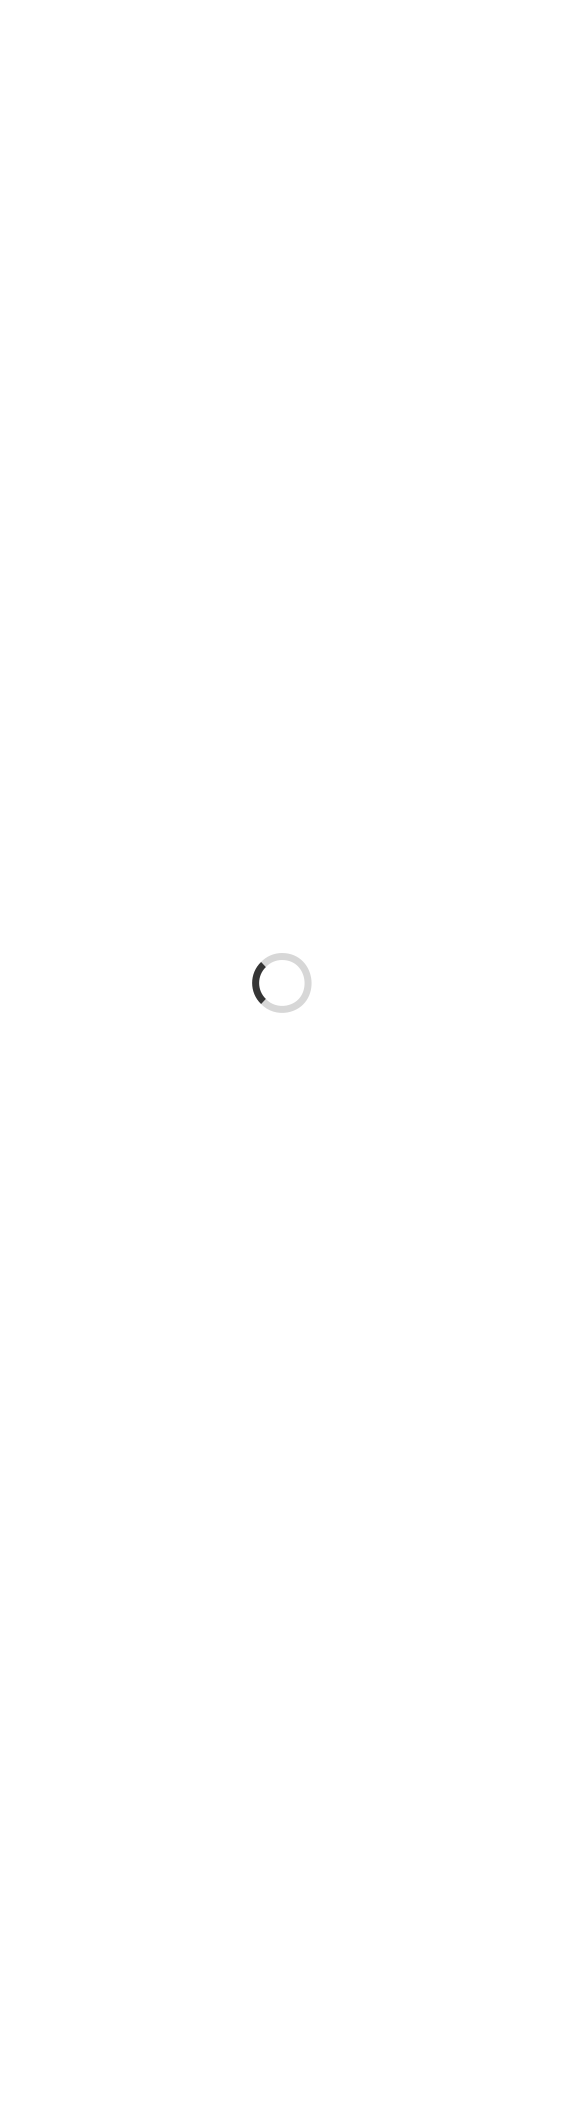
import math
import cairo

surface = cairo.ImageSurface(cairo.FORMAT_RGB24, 564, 2105)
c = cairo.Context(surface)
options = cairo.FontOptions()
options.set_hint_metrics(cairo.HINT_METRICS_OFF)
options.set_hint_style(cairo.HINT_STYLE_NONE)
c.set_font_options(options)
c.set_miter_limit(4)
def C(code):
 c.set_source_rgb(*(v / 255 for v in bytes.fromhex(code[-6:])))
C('ffffff')
c.paint()
c.new_path()
c.move_to(263.5,964.5)
c.curve_to(268,959.5,275,956.5,282,956.5)
c.curve_to(313.5,956.5,318,1003,287,1009)
c.curve_to(278.5,1010.5,269.5,1008,263.5,1001.5)
C('d7d7d7')
c.set_line_width(7)
c.stroke()
c.new_path()
c.move_to(263.5,1001.5)
c.curve_to(253,991.5,253,974.5,263.5,964.5)
C('353535')
c.stroke()
surface.write_to_png('o.png')
